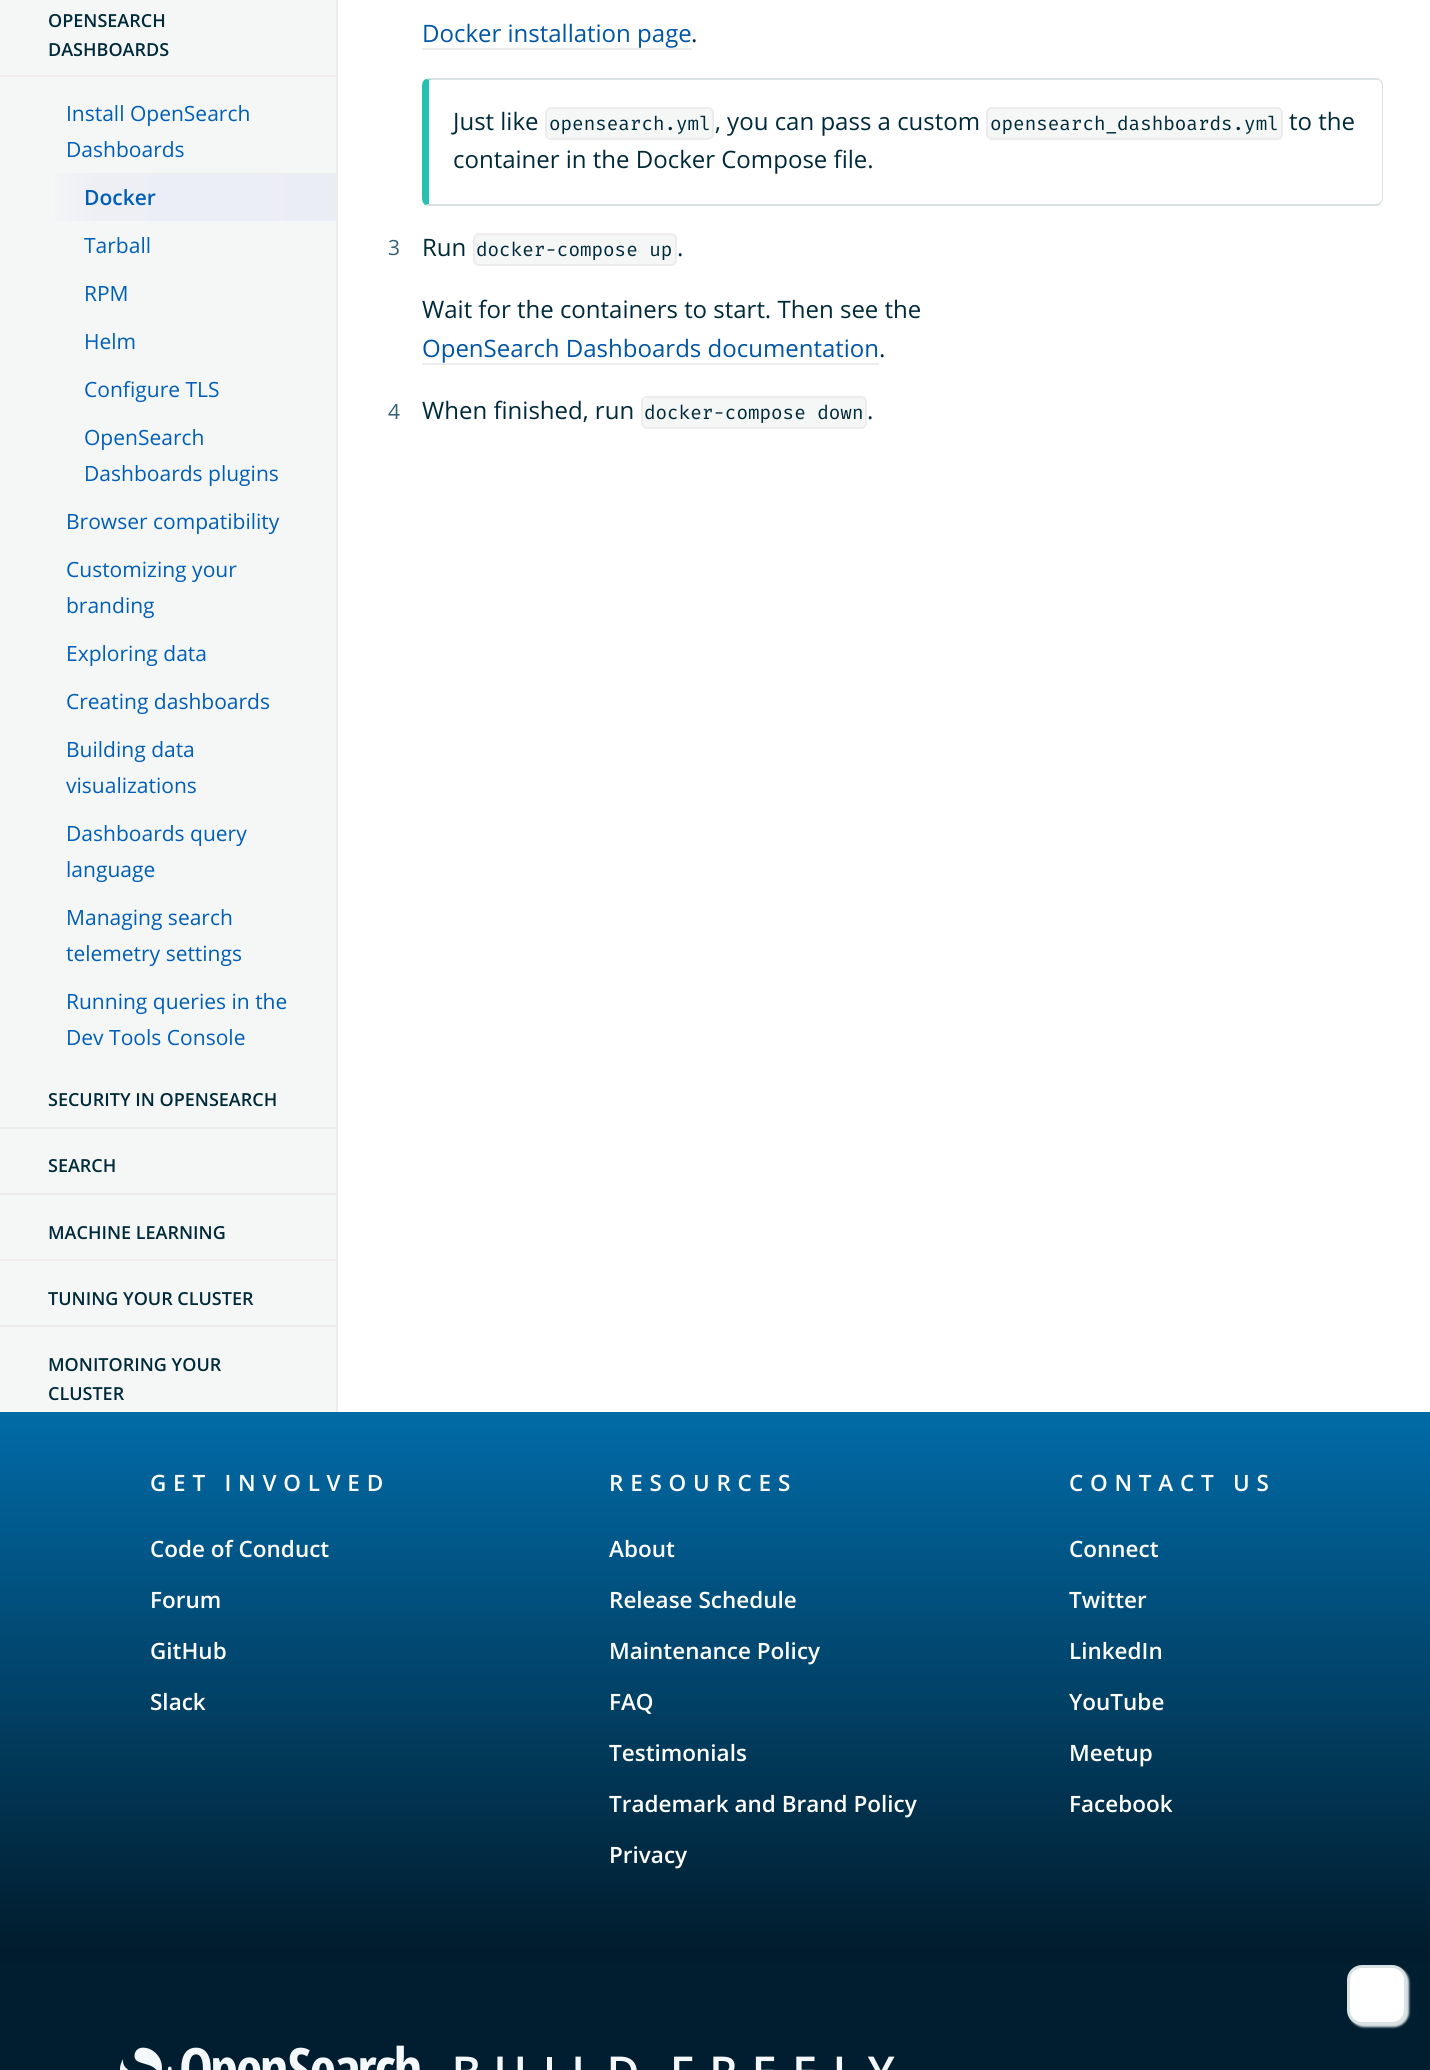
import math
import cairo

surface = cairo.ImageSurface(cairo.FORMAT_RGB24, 1430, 2070)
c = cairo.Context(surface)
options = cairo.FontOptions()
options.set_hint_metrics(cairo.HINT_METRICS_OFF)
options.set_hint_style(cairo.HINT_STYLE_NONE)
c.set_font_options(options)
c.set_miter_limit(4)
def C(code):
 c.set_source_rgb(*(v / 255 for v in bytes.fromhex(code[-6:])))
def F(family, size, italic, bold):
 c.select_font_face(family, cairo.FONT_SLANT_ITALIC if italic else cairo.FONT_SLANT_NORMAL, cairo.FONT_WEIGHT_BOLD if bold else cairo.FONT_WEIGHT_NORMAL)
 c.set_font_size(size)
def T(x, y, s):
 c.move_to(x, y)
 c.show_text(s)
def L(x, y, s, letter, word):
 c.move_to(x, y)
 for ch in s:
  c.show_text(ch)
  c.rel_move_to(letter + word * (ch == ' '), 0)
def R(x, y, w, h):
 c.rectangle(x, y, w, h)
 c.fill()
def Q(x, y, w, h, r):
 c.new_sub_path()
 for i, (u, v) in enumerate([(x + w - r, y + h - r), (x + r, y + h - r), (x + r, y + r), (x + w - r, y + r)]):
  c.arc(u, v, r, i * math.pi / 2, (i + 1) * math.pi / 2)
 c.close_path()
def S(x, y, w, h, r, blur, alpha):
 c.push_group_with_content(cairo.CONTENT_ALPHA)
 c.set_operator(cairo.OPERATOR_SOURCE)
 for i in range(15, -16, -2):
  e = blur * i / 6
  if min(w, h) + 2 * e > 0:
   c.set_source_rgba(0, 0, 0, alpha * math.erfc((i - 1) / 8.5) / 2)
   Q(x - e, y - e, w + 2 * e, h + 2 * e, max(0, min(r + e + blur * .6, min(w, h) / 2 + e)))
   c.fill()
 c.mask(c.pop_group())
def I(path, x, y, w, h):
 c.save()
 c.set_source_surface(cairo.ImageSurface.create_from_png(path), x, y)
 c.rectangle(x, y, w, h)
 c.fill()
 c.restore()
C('ffffff')
c.paint()
C('f5f7f7')
R(0,0,336,1412)
C('eeebee')
R(336,0,2,1412)
R(0,75,336,2)
F('Open Sans SemiBold',18,0,0)
C('002a3a')
T(48,27,'OPENSEARCH')
T(48,56,'DASHBOARDS')
F('Open Sans',21,0,0)
C('005eb8')
T(66,121,'Install OpenSearch')
T(66,157,'Dashboards')
gradient = cairo.LinearGradient(336,197,36,197)
gradient.add_color_stop_rgba(0,0.922,0.929,0.961,1)
gradient.add_color_stop_rgba(.8,0.929,0.937,0.961,1)
gradient.add_color_stop_rgba(1,0.961,0.969,0.969,1)
c.set_source(gradient)
R(55,173,281,48)
F('Open Sans SemiBold',21,0,0)
C('005eb8')
T(84,205,'Docker')
F('Open Sans',21,0,0)
T(84,253,'Tarball')
T(84,301,'RPM')
T(84,349,'Helm')
T(84,397,'Configure TLS')
T(84,445,'OpenSearch')
T(84,481,'Dashboards plugins')
T(66,529,'Browser compatibility')
T(66,577,'Customizing your')
T(66,613,'branding')
T(66,661,'Exploring data')
T(66,709,'Creating dashboards')
T(66,757,'Building data')
T(66,793,'visualizations')
T(66,841,'Dashboards query')
T(66,877,'language')
T(66,925,'Managing search')
T(66,961,'telemetry settings')
T(66,1009,'Running queries in the')
T(66,1045,'Dev Tools Console')
C('eeebee')
R(0,1127,336,2)
F('Open Sans SemiBold',18,0,0)
C('002a3a')
T(48,1106,'SECURITY IN OPENSEARCH')
C('eeebee')
R(0,1193,336,2)
C('002a3a')
T(48,1172,'SEARCH')
C('eeebee')
R(0,1259,336,2)
C('002a3a')
T(48,1239,'MACHINE LEARNING')
C('eeebee')
R(0,1325,336,2)
C('002a3a')
T(48,1305,'TUNING YOUR CLUSTER')
T(48,1371,'MONITORING YOUR')
T(48,1400,'CLUSTER')
F('Open Sans',24,0,0)
C('0055a6')
T(422,42,'Docker installation page')
C('eeebee')
R(422,48,270,2)
C('002a3a')
T(691,42,'.')
C('d9e1e2')
c.new_path()
c.move_to(429,78)
c.line_to(426,79)
c.line_to(432,80)
c.line_to(1376,80)
c.curve_to(1377,80,1379,80,1380,81)
c.line_to(1381,80)
c.curve_to(1380,79,1378,78,1376,78)
c.close_path()
c.fill()
c.new_path()
c.move_to(1383,198)
c.line_to(1383,86)
c.curve_to(1383,83,1382,81,1381,80)
c.line_to(1380,81)
c.curve_to(1381,82,1382,84,1382,86)
c.line_to(1382,198)
c.curve_to(1382,200,1381,201,1380,202)
c.line_to(1381,204)
c.curve_to(1382,202,1383,200,1383,198)
c.close_path()
c.fill()
c.new_path()
c.move_to(427,206)
c.line_to(425,205)
c.line_to(429,204)
c.line_to(1376,204)
c.curve_to(1377,204,1379,203,1380,202)
c.line_to(1381,204)
c.line_to(1378,206)
c.close_path()
c.fill()
C('28c0b0')
c.new_path()
c.move_to(429,80)
c.line_to(432,80)
c.line_to(426,79)
c.curve_to(423,80,422,83,422,86)
c.line_to(422,198)
c.curve_to(422,201,423,203,425,205)
c.line_to(429,204)
c.close_path()
c.fill()
C('002a3a')
T(453,130,'Just like')
C('f5f7f7')
Q(546,108,167,31,5)
c.fill_preserve()
C('eeebee')
c.stroke()
F('Fira Mono',19.25,0,0)
C('002a3a')
T(549,130,'opensearch.yml')
F('Open Sans',24,0,0)
T(715,130,', you can pass a custom')
C('f5f7f7')
Q(987,108,295,31,5)
c.fill_preserve()
C('eeebee')
c.stroke()
F('Fira Mono',19.25,0,0)
C('002a3a')
T(990,130,'opensearch_dashboards.yml')
F('Open Sans',24,0,0)
T(1289,130,'to the')
T(453,168,'container in the Docker Compose file.')
F('Open Sans',21,0,0)
C('346173')
T(388,255,'3')
F('Open Sans',24,0,0)
C('002a3a')
T(422,256,'Run')
C('f5f7f7')
Q(474,234,202,31,5)
c.fill_preserve()
C('eeebee')
c.stroke()
F('Fira Mono',19.25,0,0)
C('002a3a')
T(476,256,'docker-compose up')
F('Open Sans',24,0,0)
T(677,256,'.')
T(422,318,'Wait for the containers to start. Then see the')
C('0055a6')
T(422,357,'OpenSearch Dashboards documentation')
C('eeebee')
R(422,363,457,2)
C('002a3a')
T(879,357,'.')
F('Open Sans',21,0,0)
C('346173')
T(388,419,'4')
F('Open Sans',24,0,0)
C('002a3a')
T(422,419,'When finished, run')
C('f5f7f7')
Q(642,397,224,31,5)
c.fill_preserve()
C('eeebee')
c.stroke()
F('Fira Mono',19.25,0,0)
C('002a3a')
T(644,419,'docker-compose down')
F('Open Sans',24,0,0)
T(867,419,'.')
C('001e30')
R(0,1962,1430,108)
C('d9e1e2')
S(1349,1967,60,60,15,1,1)
C('ffffff')
Q(1348.5,1966.5,57,57,13.5)
c.fill_preserve()
C('d9e1e2')
c.set_line_width(3)
c.stroke()
gradient = cairo.LinearGradient(716,1412,716,1962)
gradient.add_color_stop_rgba(0,0.004,0.42,0.655,1)
gradient.add_color_stop_rgba(.98,0.004,0.11,0.176,1)
c.set_source(gradient)
R(0,1412,1430,550)
F('Open Sans SemiBold',22.5,0,0)
C('ffffff')
L(150,1491,'GET INVOLVED',6.75,0)
T(150,1557,'Code of Conduct')
T(150,1608,'Forum')
T(150,1659,'GitHub')
T(150,1710,'Slack')
L(609,1491,'RESOURCES',6.75,0)
T(609,1557,'About')
T(609,1608,'Release Schedule')
T(609,1659,'Maintenance Policy')
T(609,1710,'FAQ')
T(609,1761,'Testimonials')
T(609,1812,'Trademark and Brand Policy')
T(609,1863,'Privacy')
L(1069,1491,'CONTACT US',6.75,0)
T(1069,1557,'Connect')
T(1069,1608,'Twitter')
T(1069,1659,'LinkedIn')
T(1069,1710,'YouTube')
T(1069,1761,'Meetup')
T(1069,1812,'Facebook')
I('1.png',120,2045,775,25)
surface.write_to_png('o.png')
